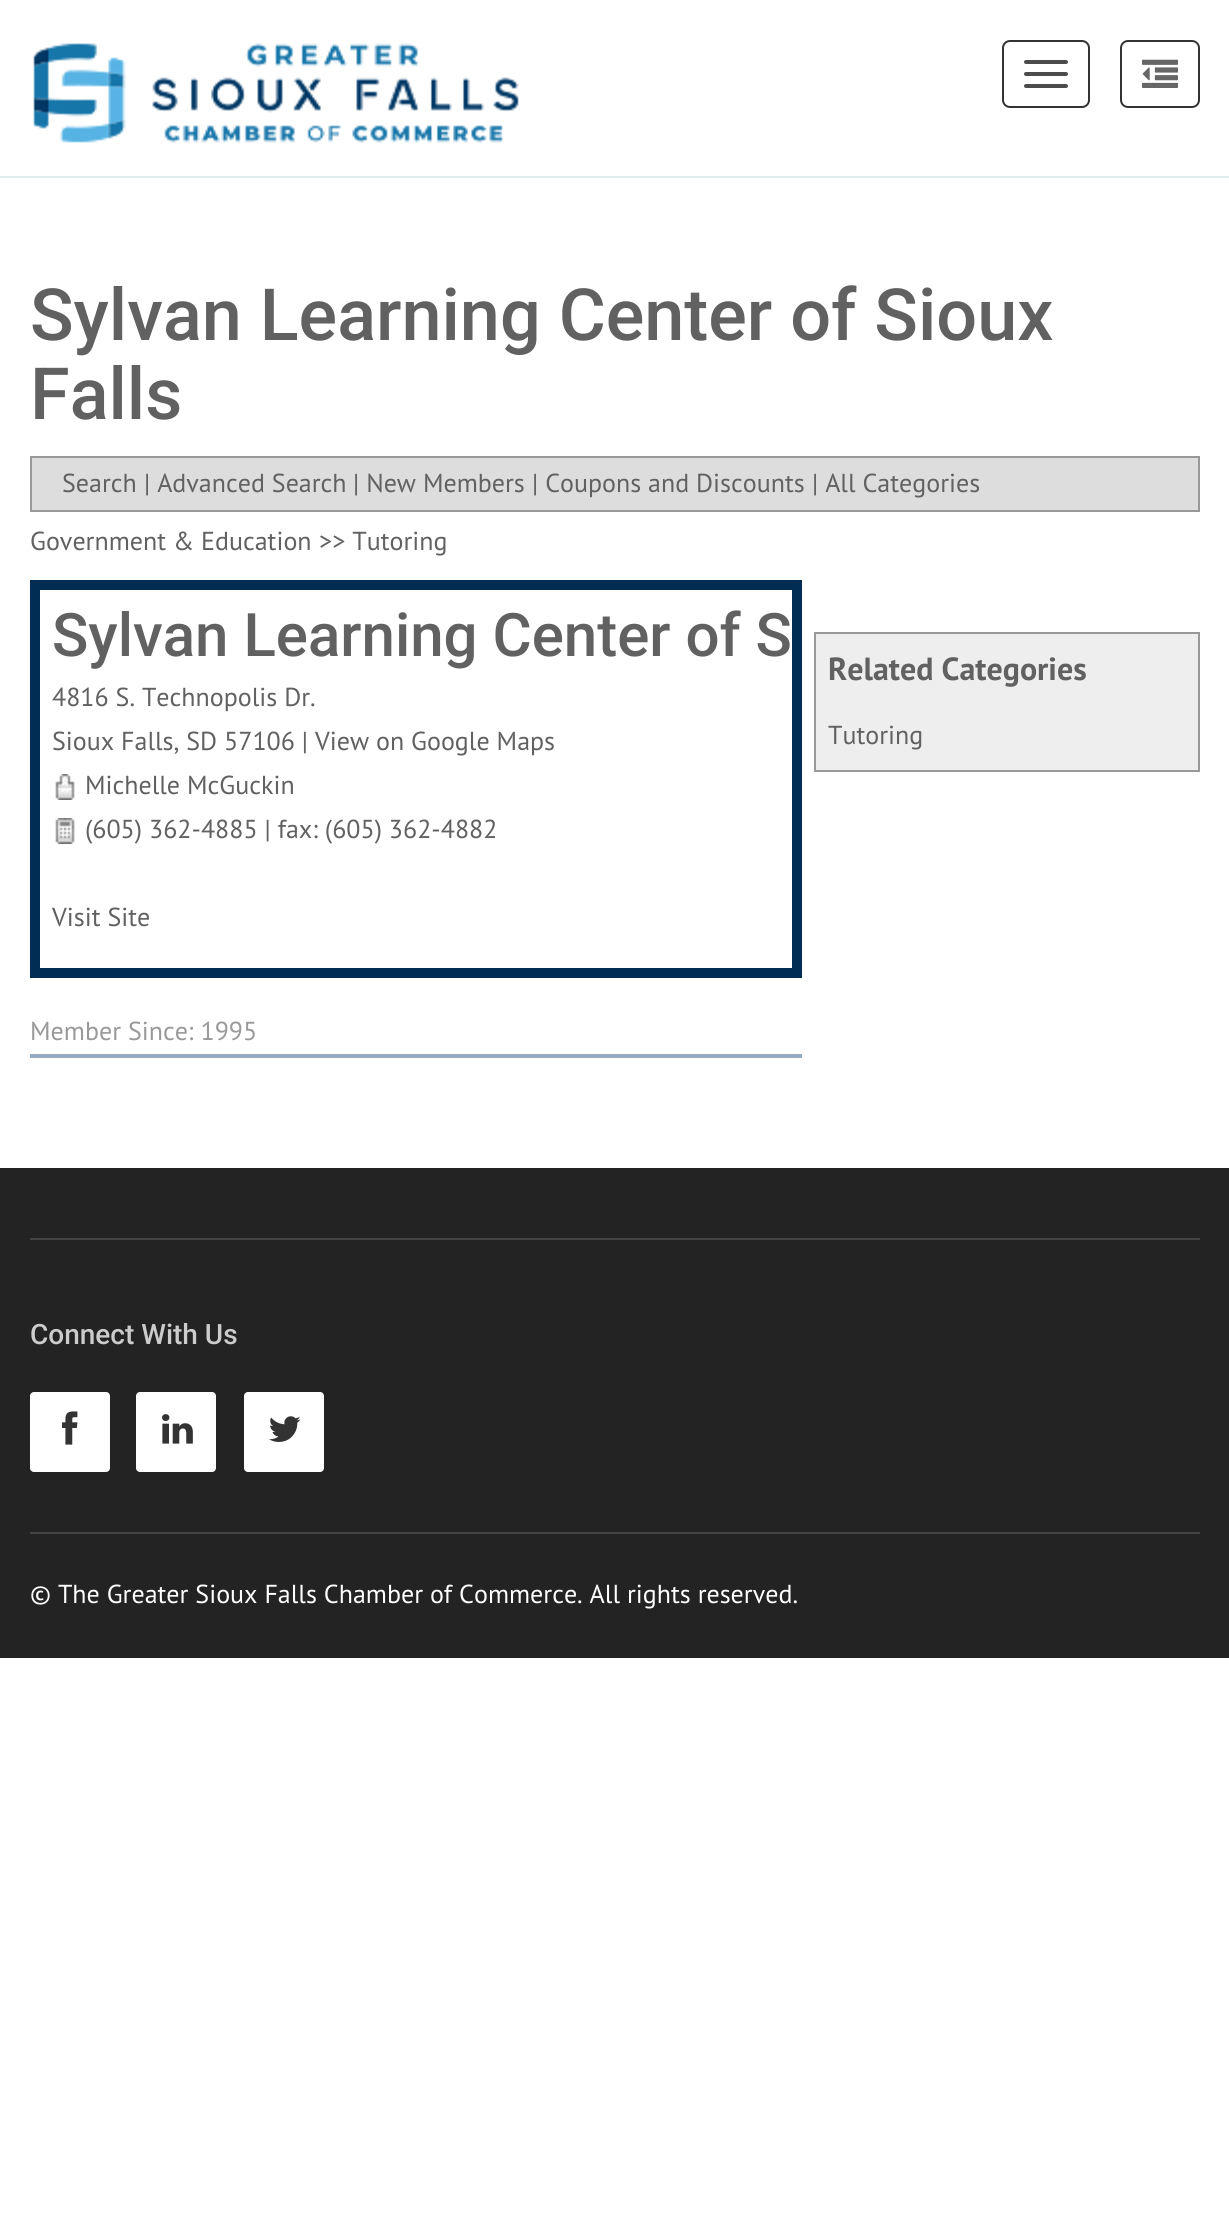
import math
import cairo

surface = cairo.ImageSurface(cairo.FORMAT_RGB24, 1229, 2216)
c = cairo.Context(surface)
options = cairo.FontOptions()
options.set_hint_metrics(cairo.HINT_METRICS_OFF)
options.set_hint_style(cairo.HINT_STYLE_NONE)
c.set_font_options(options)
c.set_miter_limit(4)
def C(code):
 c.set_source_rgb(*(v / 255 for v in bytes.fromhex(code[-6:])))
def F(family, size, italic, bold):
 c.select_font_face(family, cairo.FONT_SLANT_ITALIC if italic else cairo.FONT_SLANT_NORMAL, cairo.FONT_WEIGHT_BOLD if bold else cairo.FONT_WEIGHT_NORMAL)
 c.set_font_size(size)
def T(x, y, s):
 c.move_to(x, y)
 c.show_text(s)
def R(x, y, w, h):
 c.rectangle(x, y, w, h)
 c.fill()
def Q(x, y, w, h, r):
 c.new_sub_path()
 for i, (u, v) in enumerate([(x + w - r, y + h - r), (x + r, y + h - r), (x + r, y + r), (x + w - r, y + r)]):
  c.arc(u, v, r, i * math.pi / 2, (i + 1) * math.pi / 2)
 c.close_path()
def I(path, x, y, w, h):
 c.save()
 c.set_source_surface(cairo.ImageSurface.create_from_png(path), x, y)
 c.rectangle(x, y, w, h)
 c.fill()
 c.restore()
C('ffffff')
c.paint()
C('e0eded')
R(0,176,1229,2)
I('1.png',33,43,486,100)
Q(1003,41,86,66,7)
C('333333')
c.stroke()
C('4c4c4c')
Q(1024,60,44,4,2)
c.fill()
Q(1024,72,44,4,2)
c.fill()
Q(1024,84,44,4,2)
c.fill()
Q(1121,41,78,66,7)
C('333333')
c.stroke()
I('2.png',1142,59,36,29)
F('Roboto Medium',72,0,0)
C('616161')
T(30,340,'Sylvan Learning Center of Sioux')
T(30,419,'Falls')
C('dddddd')
c.rectangle(31,457,1168,54)
c.fill_preserve()
C('999999')
c.stroke()
F('PT Sans',26,0,0)
C('616161')
T(62,492,'Search')
T(144,492,'| Advanced Search')
T(353,492,'| New Members')
T(532,492,'| Coupons and Discounts')
T(812,492,'| All Categories')
T(30,550,'Government & Education')
T(319,550,'>> Tutoring')
C('012d54')
R(30,580,772,398)
C('ffffff')
R(40,590,752,378)
F('Roboto Medium',60,0,0)
C('616161')
T(52,656,'Sylvan Learning Center of S')
F('PT Sans',26,0,0)
T(52,706,'4816 S. Technopolis Dr.')
T(52,750,'Sioux Falls, SD 57106 | View on Google Maps')
I('3.png',55,774,20,26)
T(85,794,'Michelle McGuckin')
I('4.png',55,818,20,26)
T(85,838,'(605) 362-4885 | fax: (605) 362-4882')
T(52,926,'Visit Site')
C('999999')
T(30,1040,'Member Since: 1995')
C('96acc3')
R(30,1054,772,4)
C('eeeeee')
c.rectangle(815,633,384,138)
c.fill_preserve()
C('999999')
c.stroke()
F('PT Sans',32,0,1)
C('616161')
T(828,680,'Related Categories')
F('PT Sans',26,0,0)
T(828,744,'Tutoring')
C('232323')
R(0,1168,1229,490)
C('444444')
R(30,1238,1170,2)
F('Roboto Medium',28,0,0)
C('cccccc')
T(30,1344,'Connect With Us')
C('ffffff')
Q(30,1392,80,80,4)
c.fill()
I('5.png',62,1411,16,34)
Q(136,1392,80,80,4)
c.fill()
I('6.png',162,1414,31,30)
Q(244,1392,80,80,4)
c.fill()
I('7.png',269,1416,32,26)
C('444444')
R(30,1532,1170,2)
F('PT Sans',26,0,0)
C('ffffff')
T(30,1603,'© The Greater Sioux Falls Chamber of Commerce. All rights reserved.')
surface.write_to_png('o.png')
